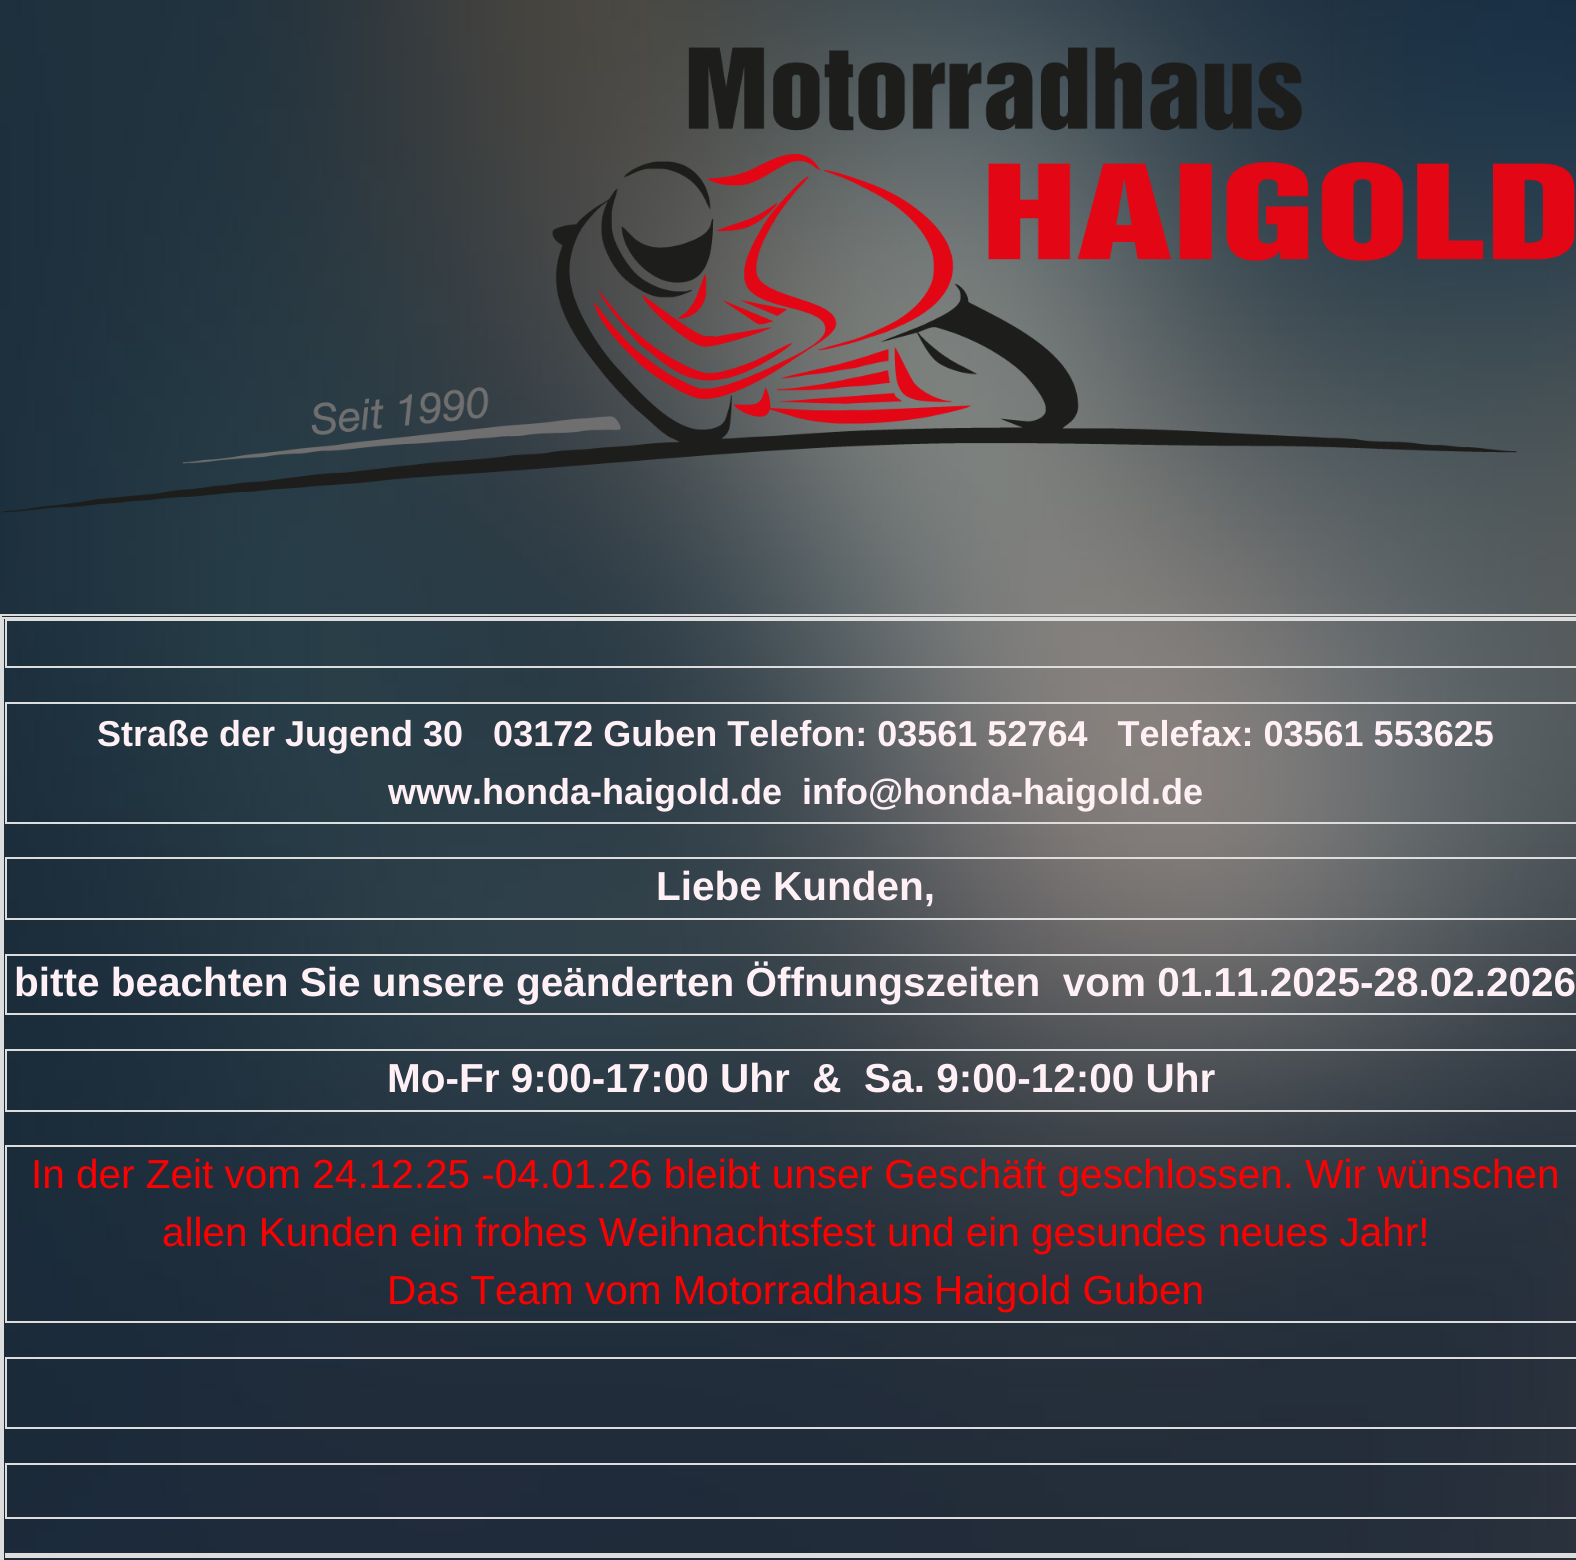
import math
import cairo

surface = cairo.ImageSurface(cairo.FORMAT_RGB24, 1576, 1560)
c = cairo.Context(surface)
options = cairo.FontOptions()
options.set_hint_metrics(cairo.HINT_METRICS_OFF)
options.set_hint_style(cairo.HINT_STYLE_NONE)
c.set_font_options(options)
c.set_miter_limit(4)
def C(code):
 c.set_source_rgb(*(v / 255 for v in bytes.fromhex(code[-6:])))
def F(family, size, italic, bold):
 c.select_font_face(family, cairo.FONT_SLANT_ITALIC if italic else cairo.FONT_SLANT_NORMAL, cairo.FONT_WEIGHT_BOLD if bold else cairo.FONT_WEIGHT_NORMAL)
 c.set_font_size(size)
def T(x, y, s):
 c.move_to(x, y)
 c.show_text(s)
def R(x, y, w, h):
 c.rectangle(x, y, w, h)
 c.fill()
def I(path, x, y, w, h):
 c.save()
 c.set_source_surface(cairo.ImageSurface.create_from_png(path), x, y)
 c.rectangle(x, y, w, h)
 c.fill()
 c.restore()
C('ffffff')
c.paint()
I('1.png',0,0,1576,1560)
I('2.png',2,47,1573,466)
c.rectangle(1,615,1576,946)
C('dddddd')
c.stroke()
c.rectangle(3,618,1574,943)
c.stroke()
c.rectangle(6,620,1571,47)
c.stroke()
c.rectangle(6,703,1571,120)
c.stroke()
F('Liberation Sans',36,0,1)
C('fff0f5')
T(97,746,'Straße der Jugend 30   03172 Guben Telefon: 03561 52764   Telefax: 03561 553625')
T(388,804,'www.honda-haigold.de  info@honda-haigold.de')
c.rectangle(6,858,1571,61)
C('dddddd')
c.stroke()
F('Liberation Sans',40.5,0,1)
C('fff0f5')
T(656,900,'Liebe Kunden,')
c.rectangle(6,955,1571,59)
C('dddddd')
c.stroke()
C('fff0f5')
T(14,996,'bitte beachten Sie unsere geänderten Öffnungszeiten  vom 01.11.2025-28.02.2026')
c.rectangle(6,1050,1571,61)
C('dddddd')
c.stroke()
C('fff0f5')
T(387,1092,'Mo-Fr 9:00-17:00 Uhr  &  Sa. 9:00-12:00 Uhr')
c.rectangle(6,1146,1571,176)
C('dddddd')
c.stroke()
F('Liberation Sans',40.5,0,0)
C('ff0000')
T(31,1188,'In der Zeit vom 24.12.25 -04.01.26 bleibt unser Geschäft geschlossen. Wir wünschen')
T(162,1246,'allen Kunden ein frohes Weihnachtsfest und ein gesundes neues Jahr!')
T(387,1304,'Das Team vom Motorradhaus Haigold Guben')
c.rectangle(6,1358,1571,70)
C('dddddd')
c.stroke()
c.rectangle(6,1464,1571,54)
c.stroke()
R(5,1553,1571,5)
surface.write_to_png('o.png')
